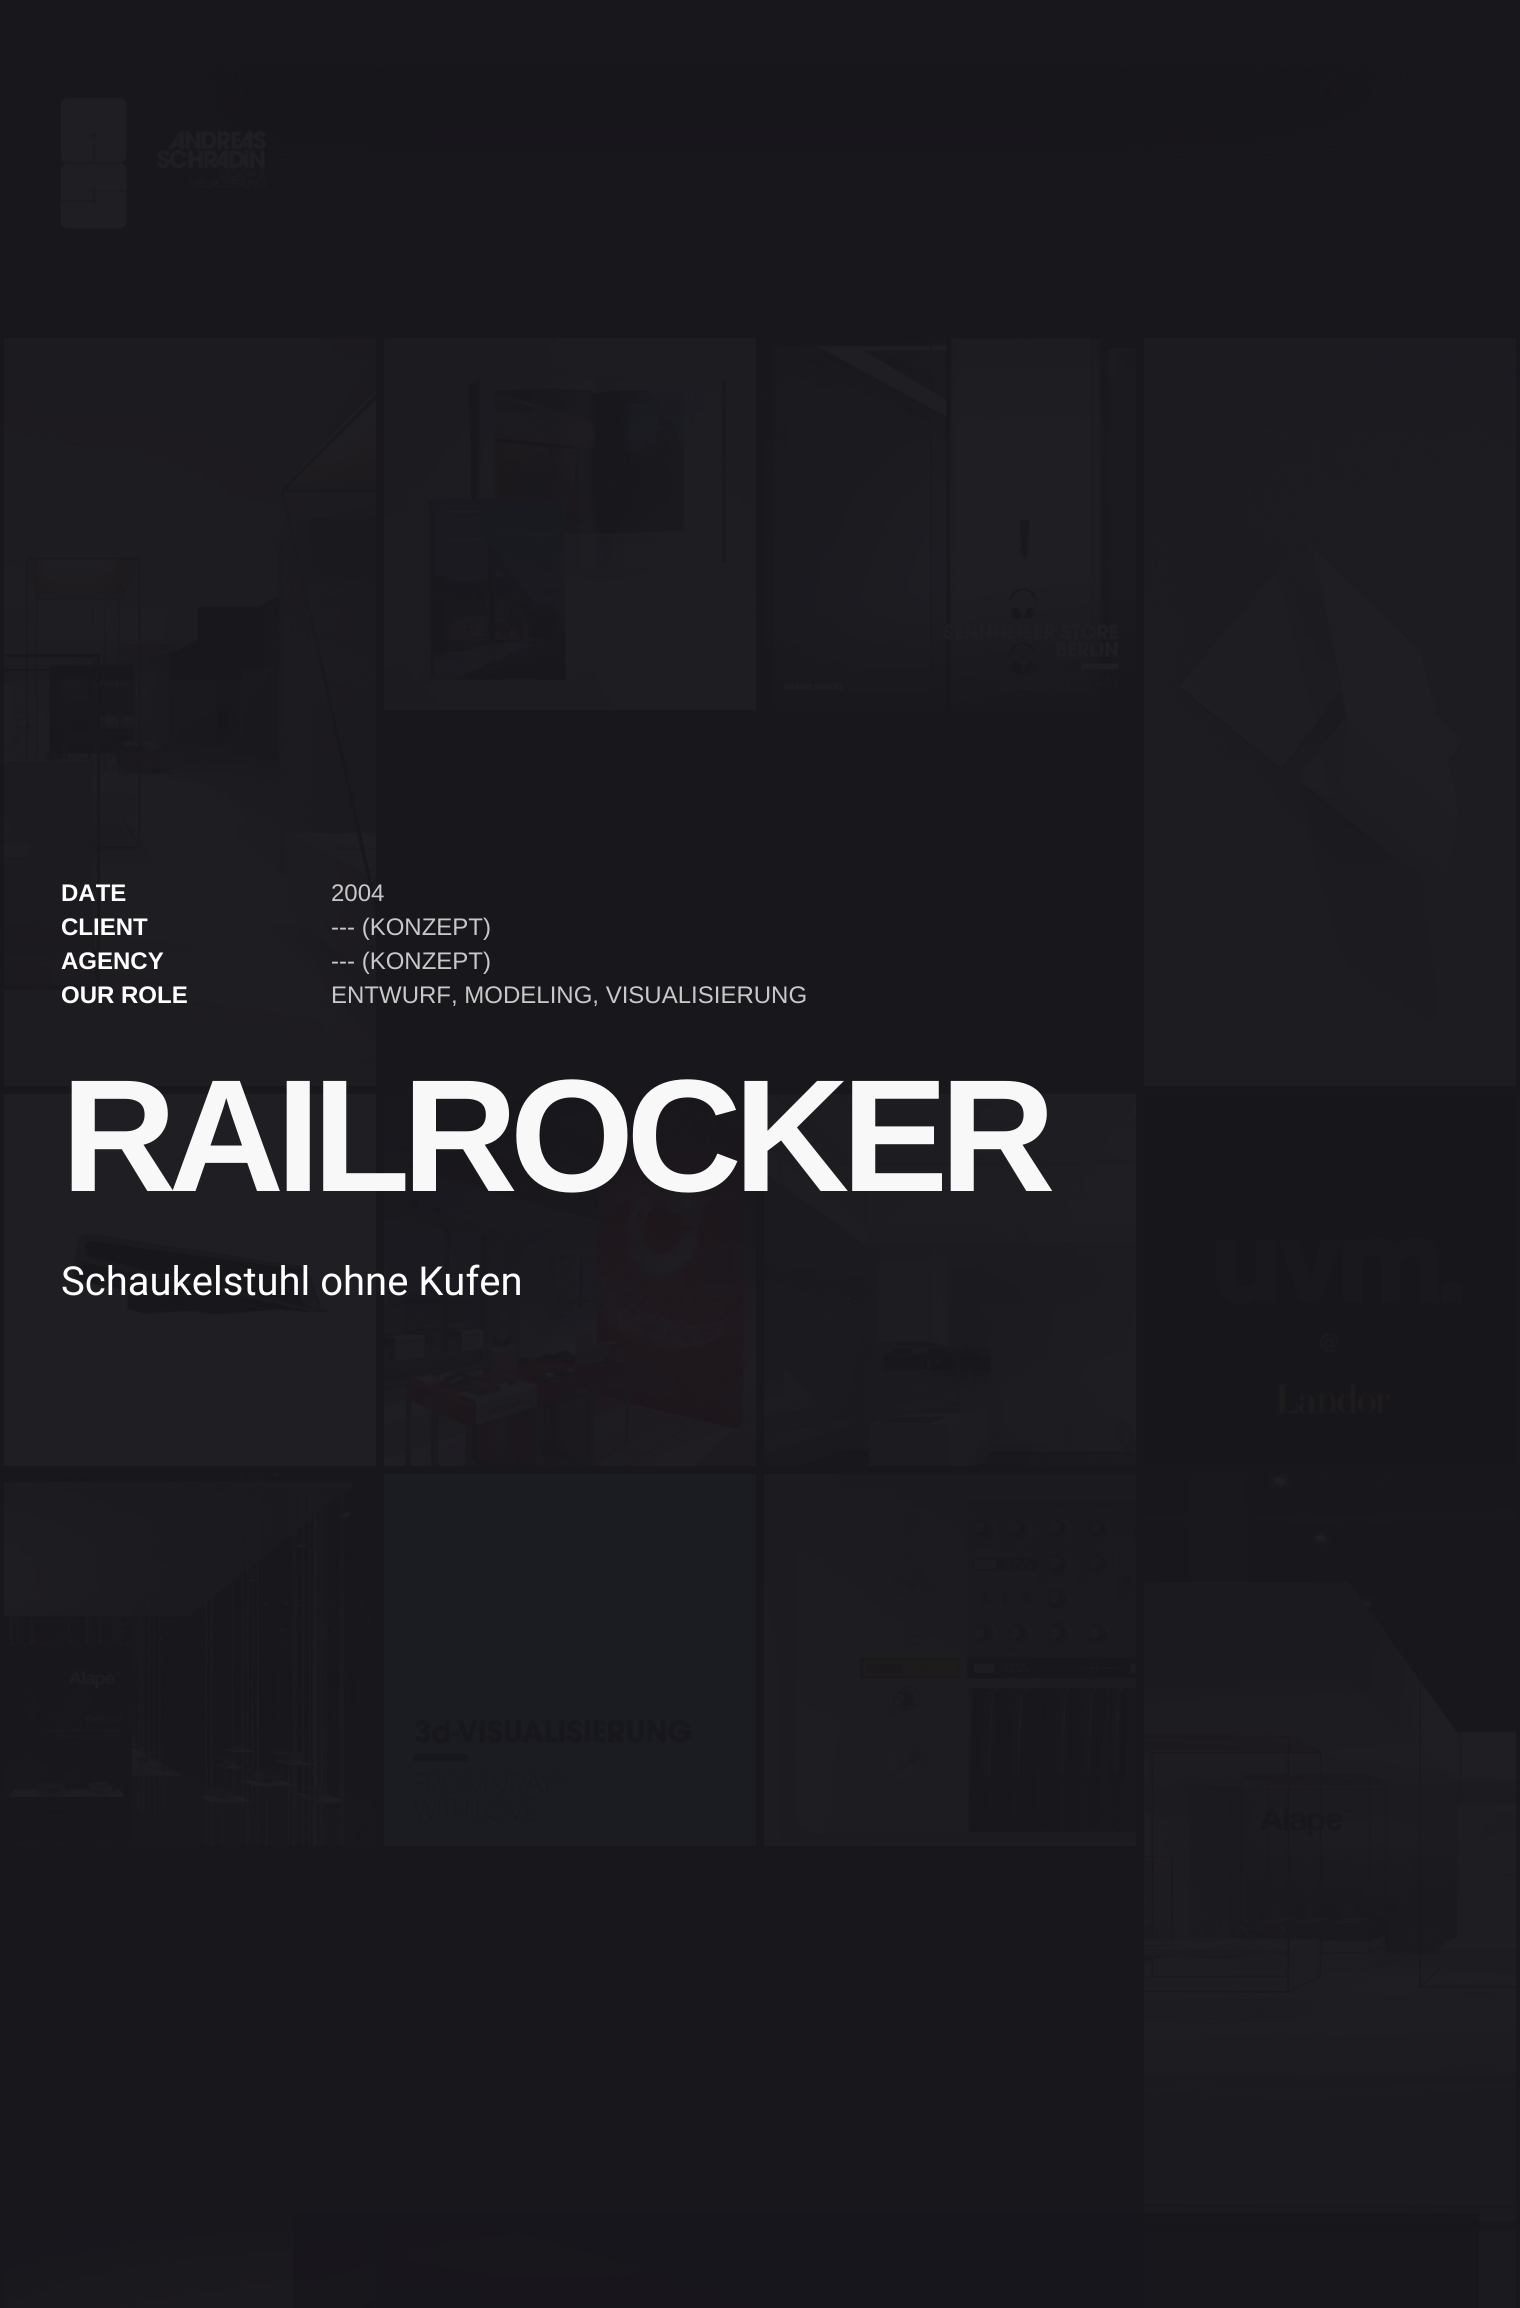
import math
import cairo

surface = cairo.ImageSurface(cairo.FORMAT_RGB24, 1520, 2308)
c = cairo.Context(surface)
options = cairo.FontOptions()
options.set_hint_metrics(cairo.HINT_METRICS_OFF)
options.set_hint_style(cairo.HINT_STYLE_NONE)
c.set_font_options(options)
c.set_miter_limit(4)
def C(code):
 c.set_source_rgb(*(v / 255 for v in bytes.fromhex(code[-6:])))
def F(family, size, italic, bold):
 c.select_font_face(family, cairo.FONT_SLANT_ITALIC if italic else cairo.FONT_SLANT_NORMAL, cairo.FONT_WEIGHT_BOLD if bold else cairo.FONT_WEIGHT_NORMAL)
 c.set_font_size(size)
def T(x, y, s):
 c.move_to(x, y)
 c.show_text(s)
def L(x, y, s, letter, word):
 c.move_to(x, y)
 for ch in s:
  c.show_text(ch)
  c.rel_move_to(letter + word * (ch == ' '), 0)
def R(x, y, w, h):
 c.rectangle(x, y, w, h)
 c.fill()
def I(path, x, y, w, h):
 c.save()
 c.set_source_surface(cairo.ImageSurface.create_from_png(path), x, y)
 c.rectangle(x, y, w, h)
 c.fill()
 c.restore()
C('18171c')
c.paint()
I('1.png',60,66,1359,164)
I('2.png',4,338,372,748)
I('3.png',384,338,372,372)
I('4.png',764,338,372,372)
I('5.png',1144,338,372,748)
I('6.png',4,1094,372,372)
I('7.png',384,1094,372,372)
I('8.png',764,1094,372,372)
I('9.png',1144,1094,372,372)
I('10.png',4,1474,372,372)
I('11.png',384,1474,372,372)
I('12.png',764,1474,372,372)
I('13.png',1144,1474,372,748)
I('14.png',4,2230,372,78)
I('15.png',384,2230,372,78)
I('16.png',1144,2230,372,78)
F('Liberation Sans',24,0,1)
C('ffffff')
T(61,901,'DATE')
F('Liberation Sans',24,0,0)
C('c8c8c8')
T(331,901,'2004')
F('Liberation Sans',24,0,1)
C('ffffff')
T(61,935,'CLIENT')
F('Liberation Sans',24,0,0)
C('c8c8c8')
T(331,935,'--- (KONZEPT)')
F('Liberation Sans',24,0,1)
C('ffffff')
T(61,969,'AGENCY')
F('Liberation Sans',24,0,0)
C('c8c8c8')
T(331,969,'--- (KONZEPT)')
F('Liberation Sans',24,0,1)
C('ffffff')
T(61,1003,'OUR ROLE')
F('Liberation Sans',24,0,0)
C('c8c8c8')
T(331,1003,'ENTWURF, MODELING, VISUALISIERUNG')
F('Liberation Sans',160,0,1)
C('f8f8f8')
L(61,1191,'RAILROCKER',-8,0)
F('Roboto',40,0,0)
C('ffffff')
T(61,1295,'Schaukelstuhl ohne Kufen')
c.set_source_rgba(0.094,0.09,0.11,0.86)
R(293,2213,1186,95)
surface.write_to_png('o.png')
